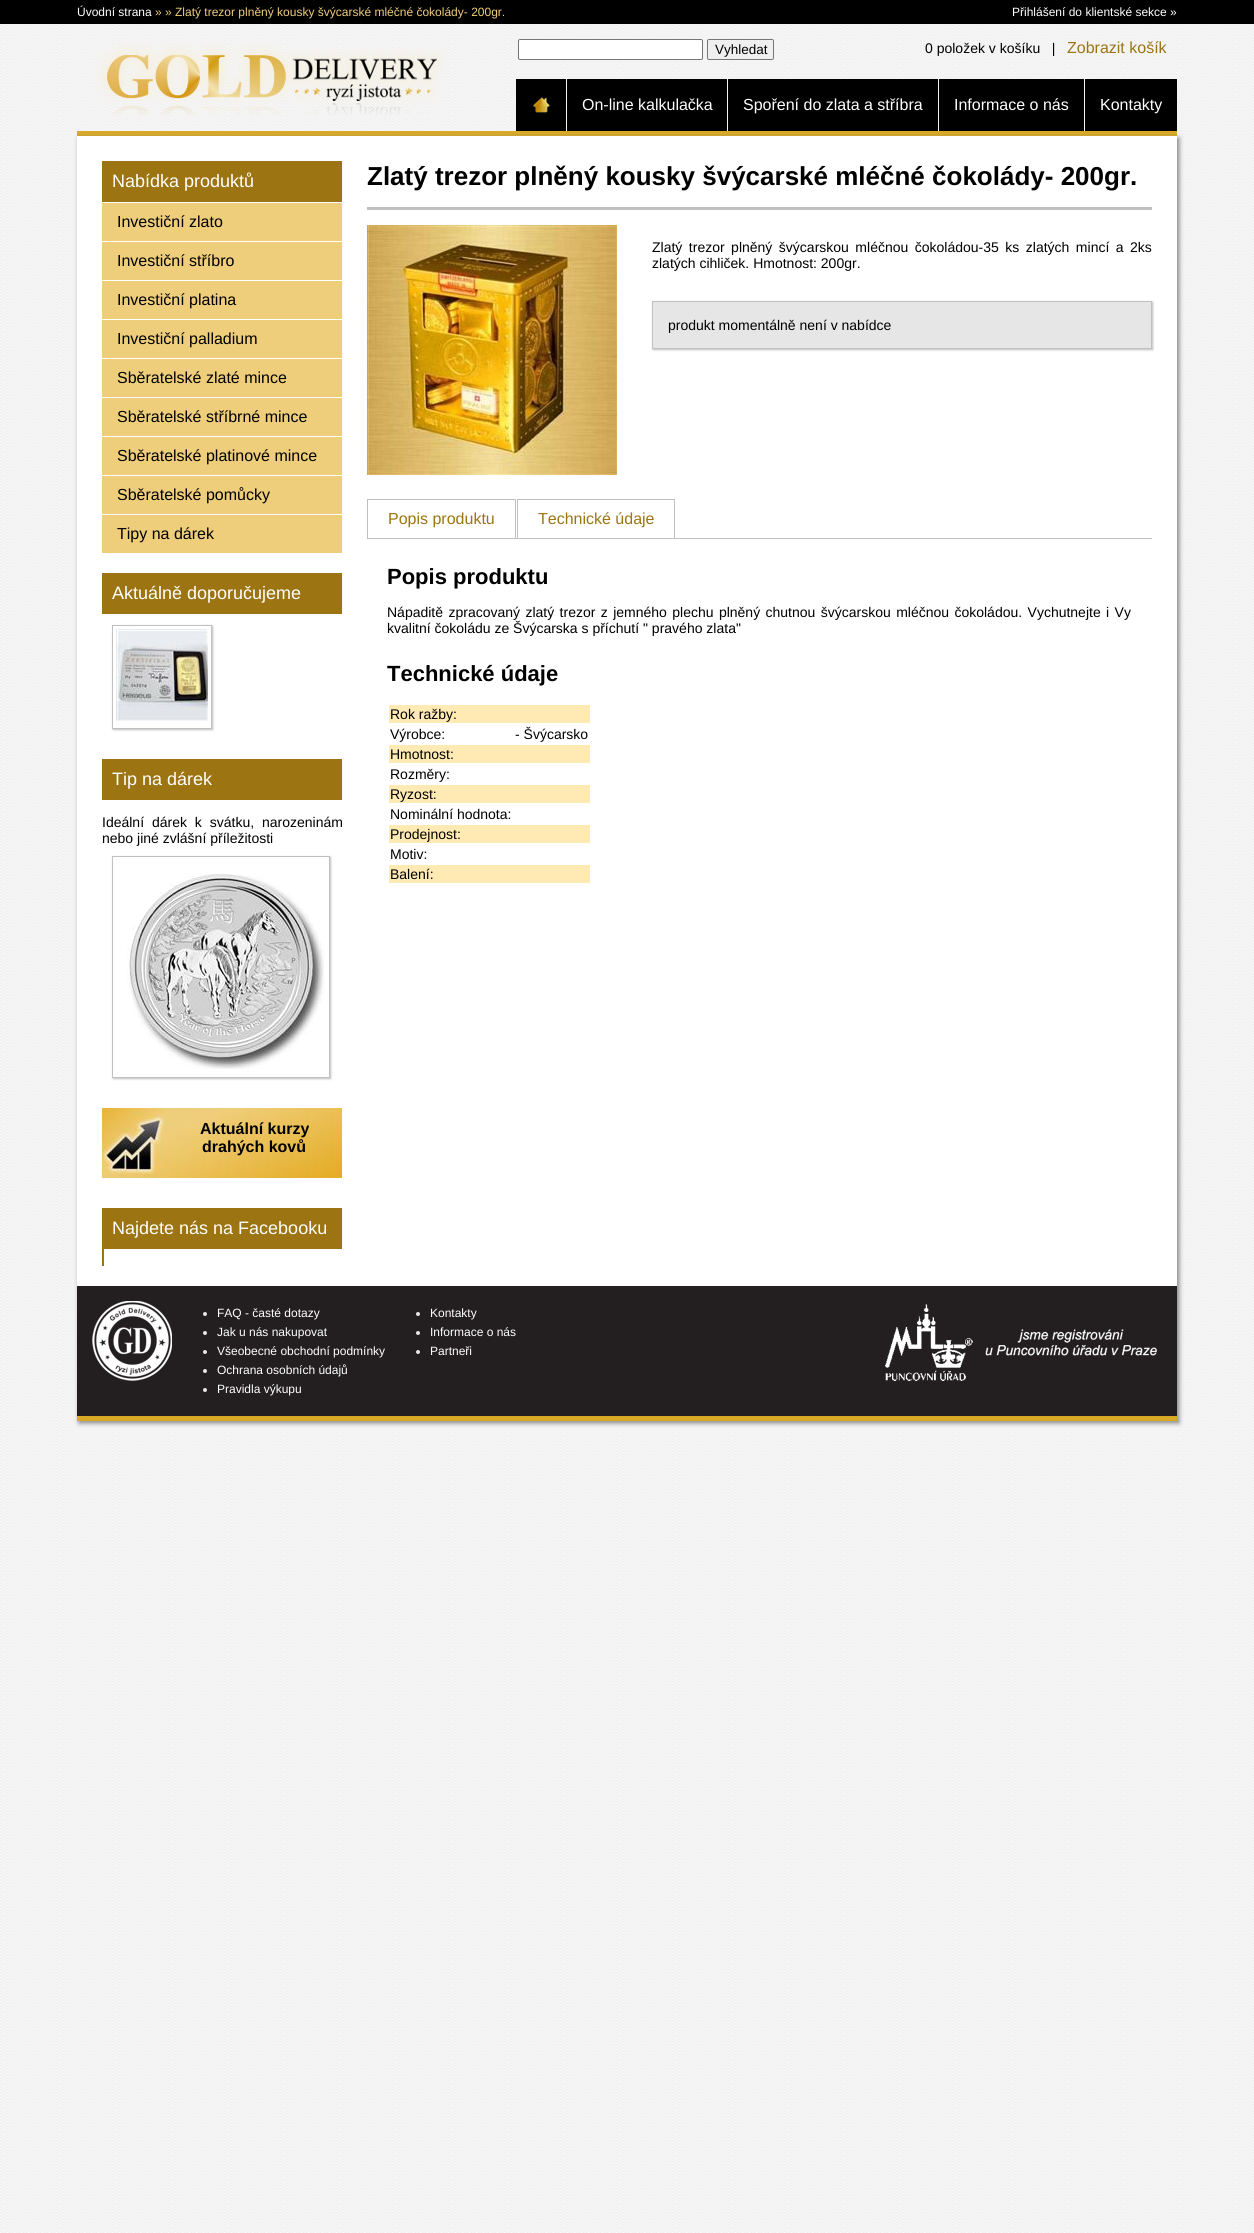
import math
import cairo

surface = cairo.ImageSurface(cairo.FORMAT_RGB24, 1254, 2233)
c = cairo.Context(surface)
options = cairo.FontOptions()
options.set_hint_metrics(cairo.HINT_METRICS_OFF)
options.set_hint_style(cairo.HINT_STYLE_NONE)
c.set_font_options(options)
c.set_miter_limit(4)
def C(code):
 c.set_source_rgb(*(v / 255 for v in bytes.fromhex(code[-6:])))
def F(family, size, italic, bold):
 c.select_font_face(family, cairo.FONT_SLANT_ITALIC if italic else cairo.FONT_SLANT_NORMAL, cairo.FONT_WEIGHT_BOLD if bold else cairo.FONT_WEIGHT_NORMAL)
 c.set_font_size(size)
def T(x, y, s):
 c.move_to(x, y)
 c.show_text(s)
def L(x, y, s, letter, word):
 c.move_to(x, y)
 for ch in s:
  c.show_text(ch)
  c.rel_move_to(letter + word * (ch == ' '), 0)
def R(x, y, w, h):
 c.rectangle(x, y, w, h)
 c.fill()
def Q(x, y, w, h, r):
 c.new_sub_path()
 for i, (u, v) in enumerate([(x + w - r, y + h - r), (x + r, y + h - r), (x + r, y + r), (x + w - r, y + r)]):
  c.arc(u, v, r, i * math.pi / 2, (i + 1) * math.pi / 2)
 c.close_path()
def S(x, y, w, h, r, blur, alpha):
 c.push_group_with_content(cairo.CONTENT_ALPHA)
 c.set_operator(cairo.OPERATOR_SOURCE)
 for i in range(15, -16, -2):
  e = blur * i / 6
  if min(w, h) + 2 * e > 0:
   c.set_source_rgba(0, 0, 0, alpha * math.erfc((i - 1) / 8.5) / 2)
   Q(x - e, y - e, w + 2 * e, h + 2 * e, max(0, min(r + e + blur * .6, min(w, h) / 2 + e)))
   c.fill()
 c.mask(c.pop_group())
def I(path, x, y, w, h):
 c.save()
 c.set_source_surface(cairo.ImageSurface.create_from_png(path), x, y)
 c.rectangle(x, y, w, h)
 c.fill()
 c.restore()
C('f0f0f0')
c.paint()
I('1.png',0,24,1254,2209)
C('000000')
R(0,0,1254,24)
F('Liberation Sans',12,0,0)
C('ffffff')
T(77,16,'Úvodní strana')
C('efce7b')
T(155,16,'» » Zlatý trezor plněný kousky švýcarské mléčné čokolády- 200gr.')
C('ffffff')
T(1012,16,'Přihlášení do klientské sekce »')
C('d9a926')
R(77,131,1100,5)
I('2.png',96,43,350,73)
C('ffffff')
Q(518.5,39.5,184,20,1.5)
c.fill_preserve()
C('767676')
c.set_line_width(1)
c.stroke()
C('efefef')
Q(707.5,39.5,66,20,1.5)
c.fill_preserve()
C('767676')
c.stroke()
F('Liberation Sans',13.5,0,0)
C('000000')
T(715,54,'Vyhledat')
F('Liberation Sans',14,0,0)
T(925,53,'0 položek v košíku   |')
F('Liberation Sans',16,0,0)
C('9c7412')
T(1067,53,'Zobrazit košík')
C('808080')
S(79,138,1100,1285,0,2.5,1)
C('000000')
R(516,79,50,52)
I('3.png',533,97,17,16)
R(567,79,160,52)
C('ffffff')
T(582,110,'On-line kalkulačka')
C('000000')
R(728,79,210,52)
C('ffffff')
T(743,110,'Spoření do zlata a stříbra')
C('000000')
R(939,79,145,52)
C('ffffff')
T(954,110,'Informace o nás')
C('000000')
R(1085,79,92,52)
C('ffffff')
T(1100,110,'Kontakty')
C('d9a926')
R(77,1416,1100,5)
C('ffffff')
R(77,136,1100,1150)
C('9c7412')
R(102,161,240,41)
F('Liberation Sans',18,0,0)
C('ffffff')
T(112,187,'Nabídka produktů')
C('efce7b')
R(102,203,240,38)
F('Liberation Sans',16,0,0)
C('000000')
T(117,227,'Investiční zlato')
C('efce7b')
R(102,242,240,38)
C('000000')
T(117,266,'Investiční stříbro')
C('efce7b')
R(102,281,240,38)
C('000000')
T(117,305,'Investiční platina')
C('efce7b')
R(102,320,240,38)
C('000000')
T(117,344,'Investiční palladium')
C('efce7b')
R(102,359,240,38)
C('000000')
T(117,383,'Sběratelské zlaté mince')
C('efce7b')
R(102,398,240,38)
C('000000')
T(117,422,'Sběratelské stříbrné mince')
C('efce7b')
R(102,437,240,38)
C('000000')
T(117,461,'Sběratelské platinové mince')
C('efce7b')
R(102,476,240,38)
C('000000')
T(117,500,'Sběratelské pomůcky')
C('efce7b')
R(102,515,240,38)
C('000000')
T(117,539,'Tipy na dárek')
C('9c7412')
R(102,573,240,41)
F('Liberation Sans',18,0,0)
C('ffffff')
T(112,599,'Aktuálně doporučujeme')
c.save()
c.set_fill_rule(cairo.FILL_RULE_EVEN_ODD)
c.new_path()
c.move_to(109,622)
c.line_to(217,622)
c.line_to(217,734)
c.line_to(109,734)
c.close_path()
c.move_to(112,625)
c.line_to(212,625)
c.line_to(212,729)
c.line_to(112,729)
c.close_path()
c.clip()
C('c0c0c0')
S(113,626,100,104,0,1,1)
c.restore()
c.rectangle(112.5,625.5,99,103)
C('c0c0c0')
c.stroke()
I('4.png',116,629,92,92)
C('9c7412')
R(102,759,240,41)
C('ffffff')
T(112,785,'Tip na dárek')
F('Liberation Sans',14,0,0)
C('000000')
L(102,827,'Ideální dárek k svátku, narozeninám',0,4)
T(102,843,'nebo jiné zvlášní příležitosti')
c.save()
c.set_fill_rule(cairo.FILL_RULE_EVEN_ODD)
c.new_path()
c.move_to(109,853)
c.line_to(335,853)
c.line_to(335,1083)
c.line_to(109,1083)
c.close_path()
c.move_to(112,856)
c.line_to(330,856)
c.line_to(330,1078)
c.line_to(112,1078)
c.close_path()
c.clip()
C('c0c0c0')
S(113,857,218,222,0,1,1)
c.restore()
c.rectangle(112.5,856.5,217,221)
C('c0c0c0')
c.stroke()
I('5.png',126,874,198,195)
I('6.png',102,1108,240,70)
F('Liberation Sans',16,0,1)
C('000000')
T(200,1134,'Aktuální kurzy')
T(202,1152,'drahých kovů')
C('9c7412')
R(102,1208,240,41)
F('Liberation Sans',18,0,0)
C('ffffff')
T(112,1234,'Najdete nás na Facebooku')
C('9c7412')
R(103,1249,1,17)
R(102,1265,2,1)
R(102,1249,1,17)
C('c0c0c0')
R(367,207,785,3)
F('Liberation Sans',26,0,1)
C('000000')
T(367,185,'Zlatý trezor plněný kousky švýcarské mléčné čokolády- 200gr.')
I('7.png',367,225,250,250)
F('Liberation Sans',14,0,0)
L(652,252,'Zlatý trezor plněný švýcarskou mléčnou čokoládou-35 ks zlatých mincí a 2ks',0,2.6)
T(652,268,'zlatých cihliček. Hmotnost: 200gr.')
C('c0c0c0')
S(653,302,500,48,0,1,1)
C('e6e6e6')
c.rectangle(652.5,301.5,499,47)
c.fill_preserve()
C('c0c0c0')
c.stroke()
C('000000')
T(668,330,'produkt momentálně není v nabídce')
C('c0c0c0')
R(367,538,785,1)
R(367,499,149,1)
R(515,499,1,39)
R(367,499,1,39)
F('Liberation Sans',16,0,0)
C('9c7412')
T(388,524,'Popis produktu')
C('c0c0c0')
R(517,499,158,1)
R(674,499,1,39)
R(517,499,1,39)
C('9c7412')
T(538,524,'Technické údaje')
F('Liberation Sans',22,0,1)
C('000000')
T(387,584,'Popis produktu')
F('Liberation Sans',14,0,0)
L(387,617,'Nápaditě zpracovaný zlatý trezor z jemného plechu plněný chutnou švýcarskou mléčnou čokoládou. Vychutnejte i Vy',0,1.5)
T(387,633,'kvalitní čokoládu ze Švýcarska s příchutí " pravého zlata"')
F('Liberation Sans',22,0,1)
T(387,681,'Technické údaje')
C('ffeab4')
R(389,705,201,18)
F('Liberation Sans',14,0,0)
C('000000')
T(390,719,'Rok ražby:')
T(390,739,'Výrobce:')
T(515,739,'- Švýcarsko')
C('ffeab4')
R(389,745,201,18)
C('000000')
T(390,759,'Hmotnost:')
T(390,779,'Rozměry:')
C('ffeab4')
R(389,785,201,18)
C('000000')
T(390,799,'Ryzost:')
T(390,819,'Nominální hodnota:')
C('ffeab4')
R(389,825,201,18)
C('000000')
T(390,839,'Prodejnost:')
T(390,859,'Motiv:')
C('ffeab4')
R(389,865,201,18)
C('000000')
T(390,879,'Balení:')
C('231f20')
R(77,1286,1100,130)
I('8.png',92,1301,80,80)
C('e6e6e6')
c.arc(205,1314,2,0,2 * math.pi)
c.fill()
F('Liberation Sans',12,0,0)
C('ffffff')
T(217,1317,'FAQ - časté dotazy')
C('e6e6e6')
c.new_path()
c.arc(205,1333,2,0,2 * math.pi)
c.fill()
C('ffffff')
T(217,1336,'Jak u nás nakupovat')
C('e6e6e6')
c.new_path()
c.arc(205,1352,2,0,2 * math.pi)
c.fill()
C('ffffff')
T(217,1355,'Všeobecné obchodní podmínky')
C('e6e6e6')
c.new_path()
c.arc(205,1371,2,0,2 * math.pi)
c.fill()
C('ffffff')
T(217,1374,'Ochrana osobních údajů')
C('e6e6e6')
c.new_path()
c.arc(205,1390,2,0,2 * math.pi)
c.fill()
C('ffffff')
T(217,1393,'Pravidla výkupu')
C('e6e6e6')
c.new_path()
c.arc(418,1314,2,0,2 * math.pi)
c.fill()
C('ffffff')
T(430,1317,'Kontakty')
C('e6e6e6')
c.new_path()
c.arc(418,1333,2,0,2 * math.pi)
c.fill()
C('ffffff')
T(430,1336,'Informace o nás')
C('e6e6e6')
c.new_path()
c.arc(418,1352,2,0,2 * math.pi)
c.fill()
C('ffffff')
T(430,1355,'Partneři')
I('9.png',885,1304,272,77)
surface.write_to_png('o.png')
